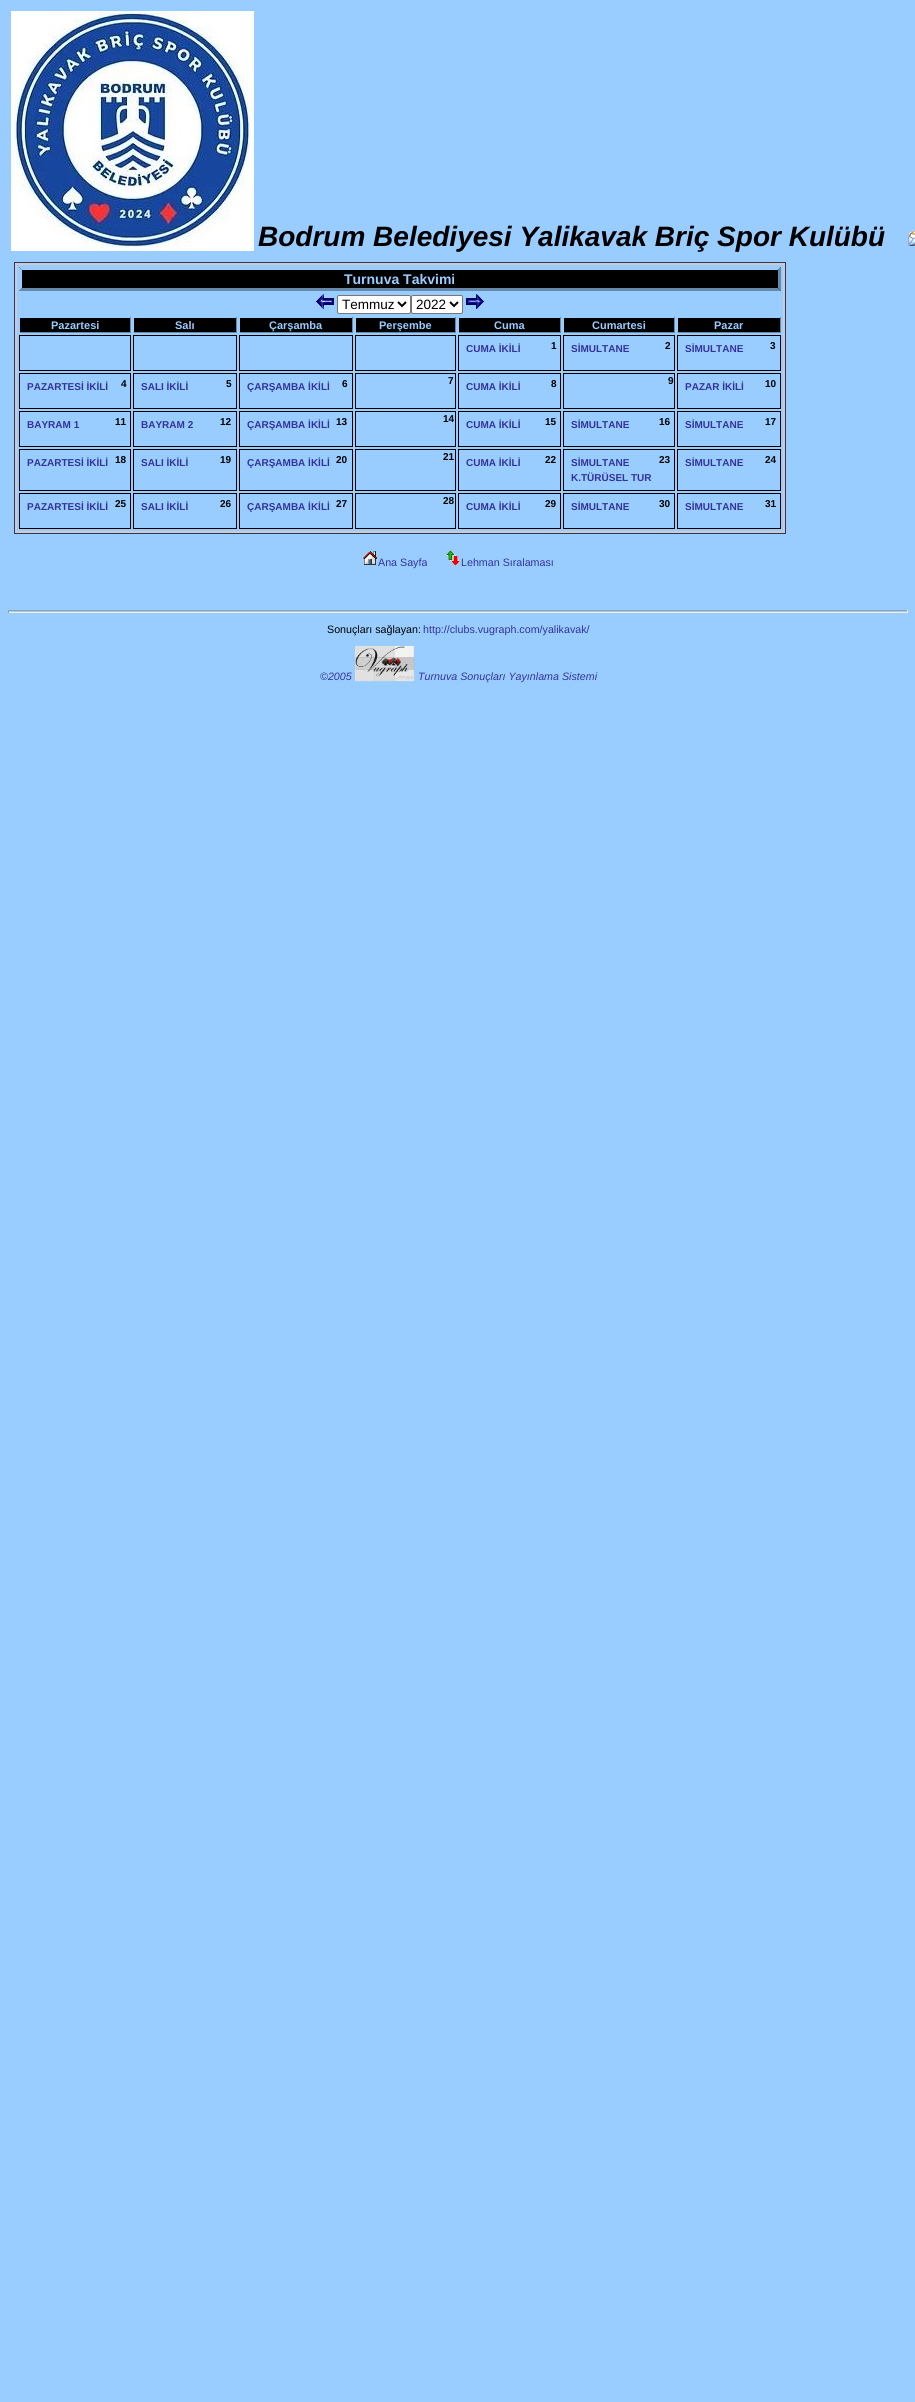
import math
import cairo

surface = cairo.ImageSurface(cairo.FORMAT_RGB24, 915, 2402)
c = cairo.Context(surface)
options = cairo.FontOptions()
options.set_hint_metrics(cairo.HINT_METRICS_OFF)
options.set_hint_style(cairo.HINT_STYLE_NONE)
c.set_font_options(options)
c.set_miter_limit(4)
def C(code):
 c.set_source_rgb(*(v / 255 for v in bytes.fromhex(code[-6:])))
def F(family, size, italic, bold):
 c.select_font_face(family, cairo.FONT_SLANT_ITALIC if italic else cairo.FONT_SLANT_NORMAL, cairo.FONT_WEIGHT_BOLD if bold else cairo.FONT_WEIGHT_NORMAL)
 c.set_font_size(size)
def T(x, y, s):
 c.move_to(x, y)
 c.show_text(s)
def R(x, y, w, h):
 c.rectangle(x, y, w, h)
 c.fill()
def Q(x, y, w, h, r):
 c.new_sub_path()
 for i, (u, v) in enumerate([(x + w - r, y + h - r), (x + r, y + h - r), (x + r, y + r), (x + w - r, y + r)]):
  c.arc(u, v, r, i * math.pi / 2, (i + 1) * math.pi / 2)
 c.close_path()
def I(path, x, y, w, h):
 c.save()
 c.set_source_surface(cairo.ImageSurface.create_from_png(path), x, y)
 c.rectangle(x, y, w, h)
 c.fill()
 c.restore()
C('99ccff')
c.paint()
I('1.png',11,11,243,240)
F('Liberation Sans',28,1,1)
C('000000')
T(258,246,'Bodrum Belediyesi Yalikavak Briç Spor Kulübü')
I('2.png',908,230,7,16)
C('cccccc')
c.rectangle(14.5,262.5,771,271)
c.fill_preserve()
C('333366')
c.set_line_width(1)
c.stroke()
C('99ccff')
R(17,265,766,266)
C('000000')
R(19,267,762,24)
C('99ccff')
c.new_path()
c.move_to(19,267)
c.line_to(781,267)
c.line_to(778,270)
c.line_to(22,270)
c.close_path()
c.fill()
C('6688aa')
c.new_path()
c.move_to(781,267)
c.line_to(781,291)
c.line_to(778,288)
c.line_to(778,270)
c.close_path()
c.fill()
c.new_path()
c.move_to(781,291)
c.line_to(19,291)
c.line_to(22,288)
c.line_to(778,288)
c.close_path()
c.fill()
C('99ccff')
c.new_path()
c.move_to(19,291)
c.line_to(19,267)
c.line_to(22,270)
c.line_to(22,288)
c.close_path()
c.fill()
F('Liberation Sans',14,0,1)
T(344,284,'Turnuva Takvimi')
I('3.png',316,294,18,15)
C('ffffff')
Q(337.5,295.5,73,18,1.5)
c.fill_preserve()
C('767676')
c.stroke()
c.new_path()
c.move_to(398,302)
c.line_to(402,306)
c.line_to(406,302)
C('000000')
c.set_line_width(2)
c.stroke()
F('Liberation Sans',13.5,0,0)
T(342,309,'Temmuz')
C('ffffff')
Q(411.5,295.5,51,18,1.5)
c.fill_preserve()
C('767676')
c.set_line_width(1)
c.stroke()
c.new_path()
c.move_to(450,302)
c.line_to(454,306)
c.line_to(458,302)
C('000000')
c.set_line_width(2)
c.stroke()
T(416,309,'2022')
I('4.png',466,294,18,15)
R(20,318,110,14)
C('6688aa')
R(130,317,1,16)
R(19,332,112,1)
C('99ccff')
R(19,332,1,1)
F('Liberation Sans',11,0,1)
T(51,329,'Pazartesi')
C('000000')
R(134,318,102,14)
C('6688aa')
R(236,317,1,16)
R(133,332,104,1)
C('99ccff')
R(133,332,1,1)
T(175,329,'Salı')
C('000000')
R(240,318,112,14)
C('6688aa')
R(352,317,1,16)
R(239,332,114,1)
C('99ccff')
R(239,332,1,1)
T(269,329,'Çarşamba')
C('000000')
R(356,318,99,14)
C('6688aa')
R(455,317,1,16)
R(355,332,101,1)
C('99ccff')
R(355,332,1,1)
T(379,329,'Perşembe')
C('000000')
R(459,318,101,14)
C('6688aa')
R(560,317,1,16)
R(458,332,103,1)
C('99ccff')
R(458,332,1,1)
T(494,329,'Cuma')
C('000000')
R(564,318,110,14)
C('6688aa')
R(674,317,1,16)
R(563,332,112,1)
C('99ccff')
R(563,332,1,1)
T(592,329,'Cumartesi')
C('000000')
R(678,318,102,14)
C('6688aa')
R(780,317,1,16)
R(677,332,104,1)
C('99ccff')
R(677,332,1,1)
T(714,329,'Pazar')
c.rectangle(19.5,335.5,111,35)
C('000000')
c.set_line_width(1)
c.stroke()
c.rectangle(133.5,335.5,103,35)
c.stroke()
c.rectangle(239.5,335.5,113,35)
c.stroke()
c.rectangle(355.5,335.5,100,35)
c.stroke()
c.rectangle(458.5,335.5,102,35)
c.stroke()
F('Liberation Sans',10,0,1)
C('333399')
T(466,352,'CUMA İKİLİ')
C('000000')
T(551,349,'1')
c.rectangle(563.5,335.5,111,35)
c.stroke()
C('333399')
T(571,352,'SİMULTANE')
C('000000')
T(665,349,'2')
c.rectangle(677.5,335.5,103,35)
c.stroke()
C('333399')
T(685,352,'SİMULTANE')
C('000000')
T(770,349,'3')
c.rectangle(19.5,373.5,111,35)
c.stroke()
C('333399')
T(27,390,'PAZARTESİ İKİLİ')
C('000000')
T(121,387,'4')
c.rectangle(133.5,373.5,103,35)
c.stroke()
C('333399')
T(141,390,'SALI İKİLİ')
C('000000')
T(226,387,'5')
c.rectangle(239.5,373.5,113,35)
c.stroke()
C('333399')
T(247,390,'ÇARŞAMBA İKİLİ')
C('000000')
T(342,387,'6')
c.rectangle(355.5,373.5,100,35)
c.stroke()
T(448,384,'7')
c.rectangle(458.5,373.5,102,35)
c.stroke()
C('333399')
T(466,390,'CUMA İKİLİ')
C('000000')
T(551,387,'8')
c.rectangle(563.5,373.5,111,35)
c.stroke()
T(668,384,'9')
c.rectangle(677.5,373.5,103,35)
c.stroke()
C('333399')
T(685,390,'PAZAR İKİLİ')
C('000000')
T(765,387,'10')
c.rectangle(19.5,411.5,111,35)
c.stroke()
C('333399')
T(27,428,'BAYRAM 1')
C('000000')
T(115,425,'11')
c.rectangle(133.5,411.5,103,35)
c.stroke()
C('333399')
T(141,428,'BAYRAM 2')
C('000000')
T(220,425,'12')
c.rectangle(239.5,411.5,113,35)
c.stroke()
C('333399')
T(247,428,'ÇARŞAMBA İKİLİ')
C('000000')
T(336,425,'13')
c.rectangle(355.5,411.5,100,35)
c.stroke()
T(443,422,'14')
c.rectangle(458.5,411.5,102,35)
c.stroke()
C('333399')
T(466,428,'CUMA İKİLİ')
C('000000')
T(545,425,'15')
c.rectangle(563.5,411.5,111,35)
c.stroke()
C('333399')
T(571,428,'SİMULTANE')
C('000000')
T(659,425,'16')
c.rectangle(677.5,411.5,103,35)
c.stroke()
C('333399')
T(685,428,'SİMULTANE')
C('000000')
T(765,425,'17')
c.rectangle(19.5,449.5,111,41)
c.stroke()
C('333399')
T(27,466,'PAZARTESİ İKİLİ')
C('000000')
T(115,463,'18')
c.rectangle(133.5,449.5,103,41)
c.stroke()
C('333399')
T(141,466,'SALI İKİLİ')
C('000000')
T(220,463,'19')
c.rectangle(239.5,449.5,113,41)
c.stroke()
C('333399')
T(247,466,'ÇARŞAMBA İKİLİ')
C('000000')
T(336,463,'20')
c.rectangle(355.5,449.5,100,41)
c.stroke()
T(443,460,'21')
c.rectangle(458.5,449.5,102,41)
c.stroke()
C('333399')
T(466,466,'CUMA İKİLİ')
C('000000')
T(545,463,'22')
c.rectangle(563.5,449.5,111,41)
c.stroke()
C('333399')
T(571,466,'SİMULTANE')
T(571,481,'K.TÜRÜSEL TUR')
C('000000')
T(659,463,'23')
c.rectangle(677.5,449.5,103,41)
c.stroke()
C('333399')
T(685,466,'SİMULTANE')
C('000000')
T(765,463,'24')
c.rectangle(19.5,493.5,111,35)
c.stroke()
C('333399')
T(27,510,'PAZARTESİ İKİLİ')
C('000000')
T(115,507,'25')
c.rectangle(133.5,493.5,103,35)
c.stroke()
C('333399')
T(141,510,'SALI İKİLİ')
C('000000')
T(220,507,'26')
c.rectangle(239.5,493.5,113,35)
c.stroke()
C('333399')
T(247,510,'ÇARŞAMBA İKİLİ')
C('000000')
T(336,507,'27')
c.rectangle(355.5,493.5,100,35)
c.stroke()
T(443,504,'28')
c.rectangle(458.5,493.5,102,35)
c.stroke()
C('333399')
T(466,510,'CUMA İKİLİ')
C('000000')
T(545,507,'29')
c.rectangle(563.5,493.5,111,35)
c.stroke()
C('333399')
T(571,510,'SİMULTANE')
C('000000')
T(659,507,'30')
c.rectangle(677.5,493.5,103,35)
c.stroke()
C('333399')
T(685,510,'SİMULTANE')
C('000000')
T(765,507,'31')
I('5.png',363,551,14,14)
F('Liberation Sans',10.7,0,0)
C('333399')
T(378,566,'Ana Sayfa')
I('6.png',446,550,14,16)
T(461,566,'Lehman Sıralaması')
C('9f9f9f')
R(8,610,900,1)
C('eeeeee')
R(907,610,1,3)
R(8,612,900,1)
C('9f9f9f')
R(8,610,1,3)
C('000000')
T(327,633,'Sonuçları sağlayan:')
C('333399')
T(423,633,'http://clubs.vugraph.com/yalikavak/')
F('Liberation Sans',10.7,1,0)
T(320,680,'©2005')
I('7.png',355,646,60,36)
T(418,680,'Turnuva Sonuçları Yayınlama Sistemi')
surface.write_to_png('o.png')
